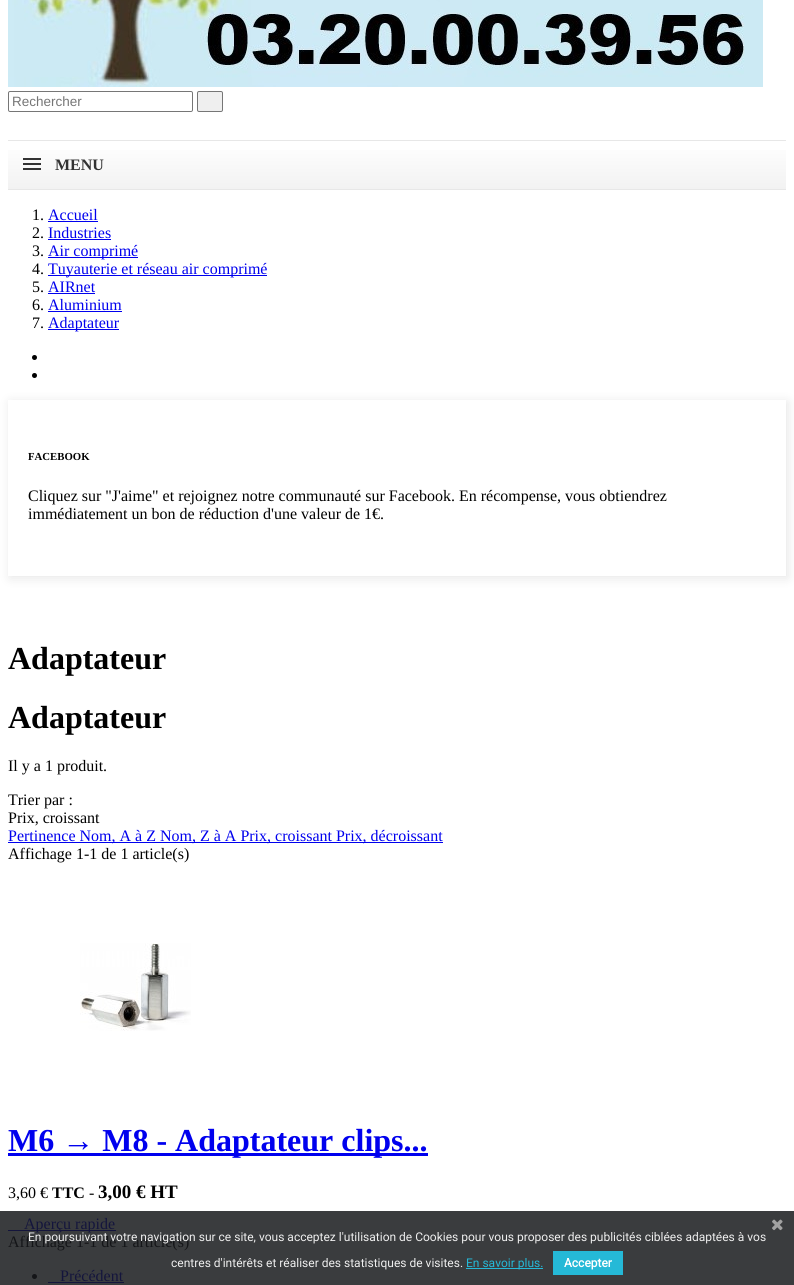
import math
import cairo

surface = cairo.ImageSurface(cairo.FORMAT_RGB24, 794, 1285)
c = cairo.Context(surface)
options = cairo.FontOptions()
options.set_hint_metrics(cairo.HINT_METRICS_OFF)
options.set_hint_style(cairo.HINT_STYLE_NONE)
c.set_font_options(options)
c.set_miter_limit(4)
def C(code):
 c.set_source_rgb(*(v / 255 for v in bytes.fromhex(code[-6:])))
def F(family, size, italic, bold):
 c.select_font_face(family, cairo.FONT_SLANT_ITALIC if italic else cairo.FONT_SLANT_NORMAL, cairo.FONT_WEIGHT_BOLD if bold else cairo.FONT_WEIGHT_NORMAL)
 c.set_font_size(size)
def T(x, y, s):
 c.move_to(x, y)
 c.show_text(s)
def R(x, y, w, h):
 c.rectangle(x, y, w, h)
 c.fill()
def Q(x, y, w, h, r):
 c.new_sub_path()
 for i, (u, v) in enumerate([(x + w - r, y + h - r), (x + r, y + h - r), (x + r, y + r), (x + w - r, y + r)]):
  c.arc(u, v, r, i * math.pi / 2, (i + 1) * math.pi / 2)
 c.close_path()
def S(x, y, w, h, r, blur, alpha):
 c.push_group_with_content(cairo.CONTENT_ALPHA)
 c.set_operator(cairo.OPERATOR_SOURCE)
 for i in range(15, -16, -2):
  e = blur * i / 6
  if min(w, h) + 2 * e > 0:
   c.set_source_rgba(0, 0, 0, alpha * math.erfc((i - 1) / 8.5) / 2)
   Q(x - e, y - e, w + 2 * e, h + 2 * e, max(0, min(r + e + blur * .6, min(w, h) / 2 + e)))
   c.fill()
 c.mask(c.pop_group())
def I(path, x, y, w, h):
 c.save()
 c.set_source_surface(cairo.ImageSurface.create_from_png(path), x, y)
 c.rectangle(x, y, w, h)
 c.fill()
 c.restore()
C('ffffff')
c.paint()
C('3a3c3e')
R(0,1211,794,74)
I('1.png',8,0,755,87)
Q(8.5,91.5,184,20,1.5)
C('767676')
c.set_line_width(1)
c.stroke()
F('Liberation Sans',13.5,0,0)
C('757575')
T(12,106,'Rechercher')
C('efefef')
Q(197.5,91.5,25,20,1.5)
c.fill_preserve()
C('767676')
c.stroke()
gradient = cairo.LinearGradient(397,141,397,189)
gradient.add_color_stop_rgba(0,1,1,1,1)
gradient.add_color_stop_rgba(1,0.949,0.949,0.949,1)
c.set_source(gradient)
R(8,150,778,39)
C('e7e7e7')
R(8,140,778,1)
R(8,189,778,1)
C('333333')
R(23,158,18,2)
R(23,163,18,2)
R(23,168,18,2)
F('Liberation Serif',16,0,1)
T(55,170,'MENU')
F('Liberation Serif',16,0,0)
C('000000')
T(32,220,'1.')
C('0000ee')
T(48,220,'Accueil')
R(48,221,50,1)
C('000000')
T(32,238,'2.')
C('0000ee')
T(48,238,'Industries')
R(48,239,63,1)
C('000000')
T(32,256,'3.')
C('0000ee')
R(48,257,90,1)
T(48,256,'Air comprimé')
C('000000')
T(32,274,'4.')
C('0000ee')
R(48,275,219,1)
T(48,274,'Tuyauterie et réseau air comprimé')
C('000000')
T(32,292,'5.')
C('0000ee')
T(48,292,'AIRnet')
R(48,293,47,1)
C('000000')
T(32,310,'6.')
C('0000ee')
T(48,310,'Aluminium')
R(48,311,74,1)
C('000000')
T(32,328,'7.')
C('0000ee')
R(48,329,71,1)
T(48,328,'Adaptateur')
C('000000')
c.new_path()
c.arc(34.5,357.5,2.5,0,2 * math.pi)
c.fill()
c.arc(34.5,375.5,2.5,0,2 * math.pi)
c.fill()
c.save()
c.set_fill_rule(cairo.FILL_RULE_EVEN_ODD)
c.new_path()
c.move_to(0,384)
c.line_to(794,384)
c.line_to(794,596)
c.line_to(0,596)
c.close_path()
c.move_to(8,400)
c.line_to(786,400)
c.line_to(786,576)
c.line_to(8,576)
c.close_path()
c.clip()
C('000000')
S(10,402,778,176,0,5.5,.1)
c.restore()
F('Liberation Serif',10.75,0,1)
T(28,460,'FACEBOOK')
F('Liberation Serif',16,0,0)
T(28,501,'Cliquez sur "J\'aime" et rejoignez notre communauté sur Facebook. En récompense, vous obtiendrez')
T(28,519,'immédiatement un bon de réduction d\'une valeur de 1€.')
F('Liberation Serif',32,0,1)
T(8,669,'Adaptateur')
T(8,728,'Adaptateur')
F('Liberation Serif',16,0,0)
T(8,771,'Il y a 1 produit.')
T(8,805,'Trier par :')
T(8,823,'Prix, croissant')
C('0000ee')
R(8,842,435,1)
T(8,841,'Pertinence Nom, A à Z Nom, Z à A Prix, croissant Prix, décroissant')
C('000000')
T(8,859,'Affichage 1-1 de 1 article(s)')
I('2.png',80,943,111,88)
C('0000ee')
R(8,1153,420,3)
F('Liberation Serif',32,0,1)
T(8,1151,'M6 → M8 - Adaptateur clips...')
F('Liberation Serif',16,0,0)
C('000000')
T(8,1198,'3,60 €')
F('Liberation Serif',16,0,1)
T(52,1198,'TTC')
F('Liberation Serif',16,0,0)
T(89,1198,'-')
F('Liberation Serif',19,0,1)
T(98,1198,'3,00 € HT')
C('14153c')
R(8,1230,108,1)
F('Liberation Serif',16,0,0)
T(24,1229,'Aperçu rapide')
C('141518')
T(8,1247,'Affichage 1-1 de 1 article(s)')
c.new_path()
c.arc(34.5,1276.5,2.5,0,2 * math.pi)
c.fill()
C('14153c')
T(60,1281,'Précédent')
R(48,1282,76,1)
I('3.png',772,1219,11,12)
F('Roboto',12,0,0)
C('efefef')
T(28,1241,'En poursuivant votre navigation sur ce site, vous acceptez l\'utilisation de Cookies pour vous proposer des publicités ciblées adaptées à vos')
T(171,1267,'centres d\'intérêts et réaliser des statistiques de visites.')
C('25b9d7')
R(466,1268,77,1)
T(466,1267,'En savoir plus.')
R(553,1251,70,24)
F('Roboto',12,0,1)
C('ffffff')
T(564,1267,'Accepter')
surface.write_to_png('o.png')
